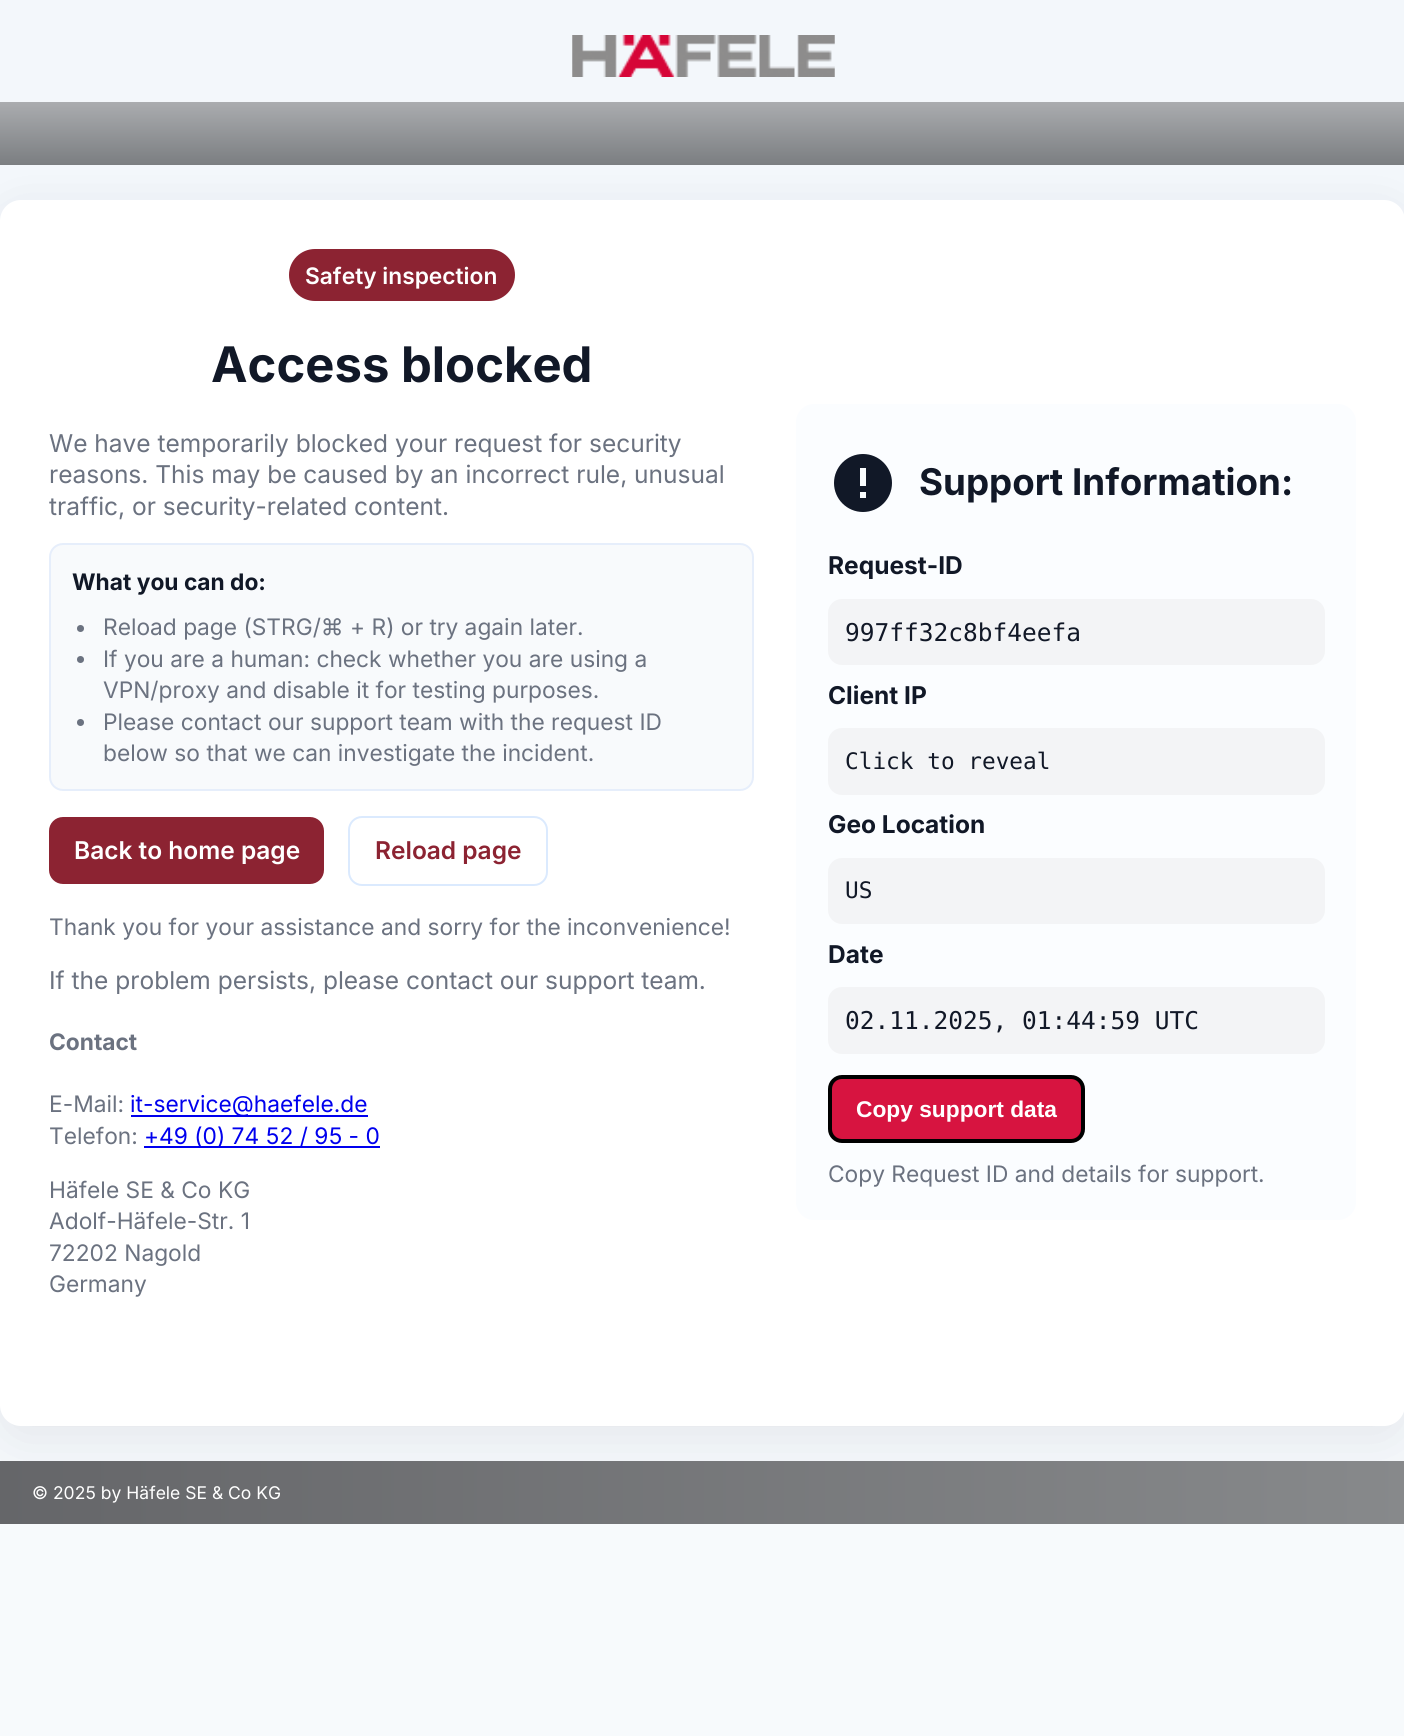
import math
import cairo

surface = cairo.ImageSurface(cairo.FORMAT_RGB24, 1404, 1736)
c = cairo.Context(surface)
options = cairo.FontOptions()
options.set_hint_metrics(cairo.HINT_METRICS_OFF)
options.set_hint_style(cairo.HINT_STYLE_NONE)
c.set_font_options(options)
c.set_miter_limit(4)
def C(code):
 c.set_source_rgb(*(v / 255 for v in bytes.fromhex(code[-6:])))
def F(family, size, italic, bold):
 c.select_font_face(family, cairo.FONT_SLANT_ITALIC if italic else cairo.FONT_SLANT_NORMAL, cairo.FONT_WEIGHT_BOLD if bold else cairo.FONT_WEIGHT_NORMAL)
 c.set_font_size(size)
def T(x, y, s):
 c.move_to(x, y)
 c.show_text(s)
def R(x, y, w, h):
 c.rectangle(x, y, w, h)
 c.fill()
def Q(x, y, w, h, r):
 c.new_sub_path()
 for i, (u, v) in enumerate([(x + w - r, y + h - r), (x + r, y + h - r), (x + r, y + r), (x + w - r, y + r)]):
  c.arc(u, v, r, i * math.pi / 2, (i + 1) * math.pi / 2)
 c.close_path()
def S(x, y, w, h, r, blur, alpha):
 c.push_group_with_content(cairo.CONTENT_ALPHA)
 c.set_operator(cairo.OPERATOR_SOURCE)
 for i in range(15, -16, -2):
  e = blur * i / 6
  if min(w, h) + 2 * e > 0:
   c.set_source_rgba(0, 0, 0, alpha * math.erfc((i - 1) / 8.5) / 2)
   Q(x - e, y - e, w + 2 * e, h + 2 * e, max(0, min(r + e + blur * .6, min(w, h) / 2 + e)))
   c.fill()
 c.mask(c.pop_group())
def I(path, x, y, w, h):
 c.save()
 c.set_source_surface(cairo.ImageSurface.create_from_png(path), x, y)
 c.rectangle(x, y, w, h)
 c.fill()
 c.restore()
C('ffffff')
c.paint()
gradient = cairo.LinearGradient(703,0,703,1736)
gradient.add_color_stop_rgba(0,0.953,0.969,0.984,1)
gradient.add_color_stop_rgba(1,0.969,0.98,0.988,1)
c.set_source(gradient)
R(0,0,1404,1736)
I('1.png',572,35,263,42)
gradient = cairo.LinearGradient(703,101,703,165)
gradient.add_color_stop_rgba(0,0.671,0.678,0.69,1)
gradient.add_color_stop_rgba(1,0.482,0.494,0.506,1)
c.set_source(gradient)
R(0,102,1404,63)
C('0f172a')
S(0,214,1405,1226,21,26,.08)
C('ffffff')
Q(0,200,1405,1226,21)
c.fill()
C('8c2332')
Q(289,249,226,52,26)
c.fill()
F('Inter SemiBold',22.75,0,0)
C('ffffff')
T(305,284,'Safety inspection')
F('Inter',49,0,1)
C('111827')
T(211,382,'Access blocked')
F('Inter',24.5,0,0)
C('6b7280')
T(49,452,'We have temporarily blocked your request for security')
T(49,483,'reasons. This may be caused by an incorrect rule, unusual')
T(49,515,'traffic, or security-related content.')
C('f8fafc')
Q(50,544,703,246,13)
c.fill_preserve()
C('e6eefb')
c.stroke()
F('Inter',22.75,0,1)
C('111827')
T(72,590,'What you can do:')
C('6b7280')
c.new_path()
c.arc(80.5,628.5,3.5,0,2 * math.pi)
c.fill()
F('Inter',22.75,0,0)
T(103,635,'Reload page (STRG/⌘ + R) or try again later.')
c.new_path()
c.arc(80.5,659.5,3.5,0,2 * math.pi)
c.fill()
T(103,667,'If you are a human: check whether you are using a')
T(103,698,'VPN/proxy and disable it for testing purposes.')
c.new_path()
c.arc(80.5,722.5,3.5,0,2 * math.pi)
c.fill()
T(103,730,'Please contact our support team with the request ID')
T(103,761,'below so that we can investigate the incident.')
C('8c2332')
Q(49,817,275,67,14)
c.fill()
F('Inter SemiBold',24.5,0,0)
C('ffffff')
T(74,859,'Back to home page')
Q(349,817,198,68,13)
C('dbeafe')
c.stroke()
C('8c2332')
T(375,859,'Reload page')
F('Inter',22.75,0,0)
C('6b7280')
T(49,935,'Thank you for your assistance and sorry for the inconvenience!')
F('Inter',24.5,0,0)
T(49,989,'If the problem persists, please contact our support team.')
F('Inter',22.75,0,1)
T(49,1050,'Contact')
F('Inter',22.75,0,0)
T(49,1112,'E-Mail:')
C('0000ee')
R(131,1115,237,2)
T(130,1112,'it-service@haefele.de')
C('6b7280')
T(49,1144,'Telefon:')
C('0000ee')
R(144,1146,236,2)
T(144,1144,'+49 (0) 74 52 / 95 - 0')
C('6b7280')
T(49,1198,'Häfele SE & Co KG')
T(49,1229,'Adolf-Häfele-Str. 1')
T(49,1261,'72202 Nagold')
T(49,1292,'Germany')
C('fbfdff')
Q(796,404,560,816,18)
c.fill()
C('111827')
c.new_path()
c.move_to(863,454)
c.curve_to(847,454,834,467,834,483)
c.curve_to(834,499,847,512,863,512)
c.curve_to(879,512,892,499,892,483)
c.curve_to(892,467,879,454,863,454)
c.close_path()
c.move_to(866,498)
c.line_to(860,498)
c.line_to(860,492)
c.line_to(866,492)
c.close_path()
c.move_to(866,486)
c.line_to(860,486)
c.line_to(860,468)
c.line_to(866,468)
c.close_path()
c.fill()
F('Inter',36.75,0,1)
T(919,495,'Support Information:')
F('Inter',24.5,0,1)
T(828,574,'Request-ID')
C('f3f4f6')
Q(828,599,497,66,14)
c.fill()
F('DejaVu Sans Mono',24.5,0,0)
C('111827')
T(845,641,'997ff32c8bf4eefa')
F('Inter',24.5,0,1)
T(828,704,'Client IP')
C('f3f4f6')
Q(828,728,497,67,14)
c.fill()
F('DejaVu Sans Mono',22.75,0,0)
C('111827')
T(845,769,'Click to reveal')
F('Inter',24.5,0,1)
T(828,833,'Geo Location')
C('f3f4f6')
Q(828,858,497,66,14)
c.fill()
F('DejaVu Sans Mono',22.75,0,0)
C('111827')
T(845,898,'US')
F('Inter',24.5,0,1)
T(828,963,'Date')
C('f3f4f6')
Q(828,987,497,67,14)
c.fill()
F('DejaVu Sans Mono',24.5,0,0)
C('111827')
T(845,1029,'02.11.2025, 01:44:59 UTC')
C('d71440')
Q(830,1077,253,64,12)
c.fill_preserve()
C('000000')
c.set_line_width(4)
c.stroke()
F('Liberation Sans',22.75,0,1)
C('ffffff')
T(856,1117,'Copy support data')
F('Inter',22.75,0,0)
C('6b7280')
T(828,1182,'Copy Request ID and details for support.')
gradient = cairo.LinearGradient(0,1493,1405,1493)
gradient.add_color_stop_rgba(0,0.396,0.4,0.412,1)
gradient.add_color_stop_rgba(1,0.529,0.537,0.545,1)
c.set_source(gradient)
R(0,1461,1404,63)
F('Inter',17.5,0,0)
C('ffffff')
T(32,1499,'© 2025 by Häfele SE & Co KG')
surface.write_to_png('o.png')
